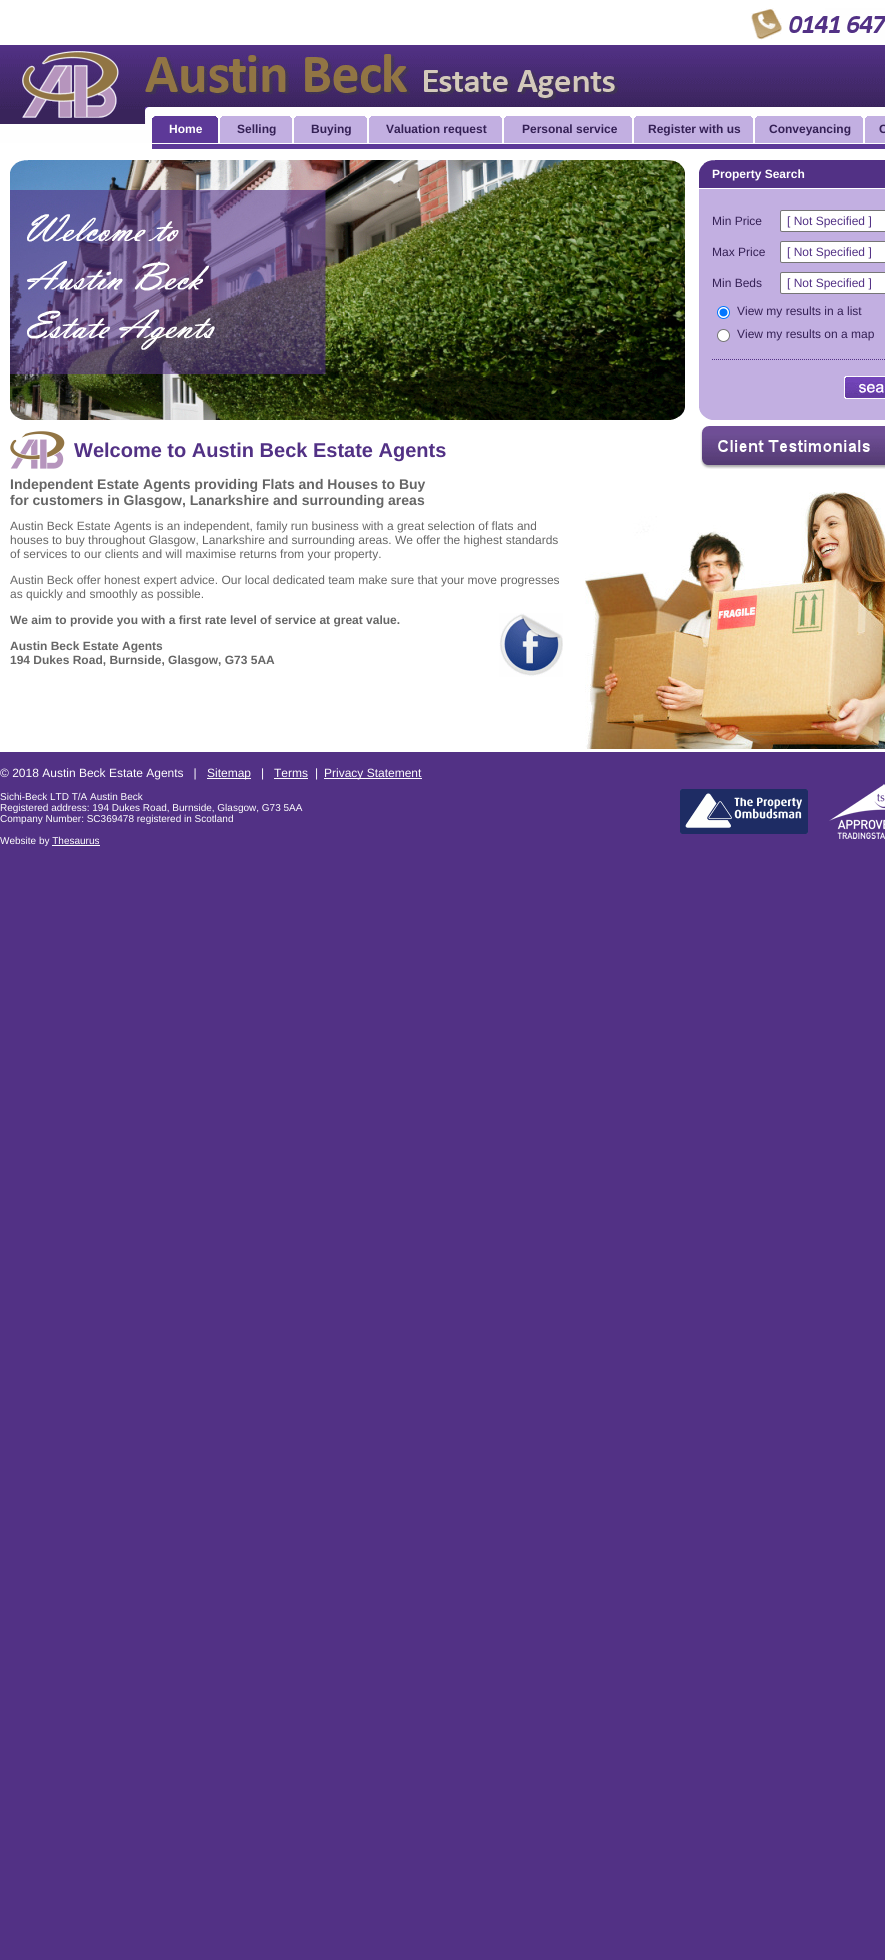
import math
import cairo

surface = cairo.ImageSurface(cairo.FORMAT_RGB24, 885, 1960)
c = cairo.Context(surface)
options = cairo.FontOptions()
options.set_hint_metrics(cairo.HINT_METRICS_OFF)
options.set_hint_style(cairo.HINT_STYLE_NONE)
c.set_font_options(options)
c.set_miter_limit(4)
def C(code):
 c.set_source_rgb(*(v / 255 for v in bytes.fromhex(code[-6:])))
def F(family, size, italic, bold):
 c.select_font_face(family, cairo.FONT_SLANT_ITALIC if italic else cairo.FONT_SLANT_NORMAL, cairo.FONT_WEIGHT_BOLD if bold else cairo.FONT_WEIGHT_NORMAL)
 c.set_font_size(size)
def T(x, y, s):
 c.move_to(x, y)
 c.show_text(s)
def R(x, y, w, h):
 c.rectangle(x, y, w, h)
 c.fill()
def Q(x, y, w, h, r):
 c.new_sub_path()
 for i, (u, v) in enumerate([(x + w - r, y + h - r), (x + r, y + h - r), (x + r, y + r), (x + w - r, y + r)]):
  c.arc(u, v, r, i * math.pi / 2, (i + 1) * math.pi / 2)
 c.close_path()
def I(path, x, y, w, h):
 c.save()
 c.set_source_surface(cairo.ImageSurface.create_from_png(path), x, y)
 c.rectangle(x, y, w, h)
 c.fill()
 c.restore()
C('523185')
c.paint()
C('ffffff')
R(0,0,885,45)
I('1.png',751,8,134,32)
I('2.png',0,45,885,6)
I('3.png',0,51,885,92)
C('5d3998')
R(152,116,66,27)
I('4.png',152,116,3,2)
I('5.png',216,116,2,2)
F('Liberation Sans',12,0,1)
C('ffffff')
T(169,133,'Home')
C('c2afe1')
R(220,116,72,27)
I('6.png',220,116,2,2)
I('7.png',290,116,2,2)
C('342055')
T(237,133,'Selling')
C('c2afe1')
R(294,116,73,27)
I('6.png',294,116,2,2)
I('8.png',365,116,2,2)
C('342055')
T(311,133,'Buying')
C('c2afe1')
R(369,116,133,27)
I('6.png',369,116,2,2)
I('8.png',500,116,2,2)
C('342055')
T(386,133,'Valuation request')
C('c2afe1')
R(504,116,128,27)
I('6.png',504,116,2,2)
I('8.png',630,116,2,2)
C('342055')
T(522,133,'Personal service')
C('c2afe1')
R(634,116,119,27)
I('6.png',634,116,2,2)
I('7.png',751,116,2,2)
C('342055')
T(648,133,'Register with us')
C('c2afe1')
R(755,116,108,27)
I('6.png',755,116,2,2)
I('8.png',861,116,2,2)
C('342055')
T(769,133,'Conveyancing')
C('c2afe1')
R(865,116,20,27)
I('6.png',865,116,2,2)
C('342055')
T(879,133,'C')
C('ffffff')
R(0,143,885,14)
C('5d3998')
R(152,144,733,5)
C('ffffff')
R(0,157,885,266)
I('9.png',10,160,675,260)
C('523185')
R(699,160,186,28)
I('10.png',699,160,16,12)
C('ffffff')
T(712,178,'Property Search')
C('c2afe1')
R(699,189,186,231)
I('11.png',699,408,13,12)
F('Liberation Sans',12,0,0)
C('342055')
T(712,225,'Min Price')
C('ffffff')
Q(780.5,210.5,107,21,1.5)
c.fill_preserve()
C('767676')
c.set_line_width(1)
c.stroke()
C('523185')
T(787,225,'[ Not Specified ]')
C('342055')
T(712,256,'Max Price')
C('ffffff')
Q(780.5,241.5,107,21,1.5)
c.fill_preserve()
C('767676')
c.stroke()
C('523185')
T(787,256,'[ Not Specified ]')
C('342055')
T(712,287,'Min Beds')
C('ffffff')
Q(780.5,272.5,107,21,1.5)
c.fill_preserve()
C('767676')
c.stroke()
C('523185')
T(787,287,'[ Not Specified ]')
C('ffffff')
c.new_path()
c.arc(723.5,312.5,6,0,2 * math.pi)
c.fill_preserve()
C('0075ff')
c.stroke()
c.arc(723.5,312.5,4,0,2 * math.pi)
c.fill()
C('342055')
T(737,315,'View my results in a list')
C('ffffff')
c.new_path()
c.arc(723.5,335.5,6,0,2 * math.pi)
c.fill_preserve()
C('767676')
c.stroke()
C('342055')
T(737,338,'View my results on a map')
I('12.png',712,359,173,1)
I('13.png',844,376,41,23)
C('ffffff')
R(0,423,885,329)
I('14.png',10,431,55,38)
F('Liberation Sans',20,0,1)
C('523185')
T(74,457,'Welcome to Austin Beck Estate Agents')
I('15.png',700,426,185,43)
F('Liberation Sans',14,0,1)
C('666666')
T(10,489,'Independent Estate Agents providing Flats and Houses to Buy')
T(10,505,'for customers in Glasgow, Lanarkshire and surrounding areas')
I('16.png',585,492,300,257)
F('Liberation Sans',12,0,0)
T(10,530,'Austin Beck Estate Agents is an independent, family run business with a great selection of flats and')
T(10,544,'houses to buy throughout Glasgow, Lanarkshire and surrounding areas. We offer the highest standards')
T(10,558,'of services to our clients and will maximise returns from your property.')
T(10,584,'Austin Beck offer honest expert advice. Our local dedicated team make sure that your move progresses')
T(10,598,'as quickly and smoothly as possible.')
F('Liberation Sans',12,0,1)
T(10,624,'We aim to provide you with a first rate level of service at great value.')
I('17.png',499,613,64,64)
T(10,650,'Austin Beck Estate Agents')
T(10,664,'194 Dukes Road, Burnside, Glasgow, G73 5AA')
F('Liberation Sans',12,0,0)
C('ffffff')
T(0,777,'© 2018 Austin Beck Estate Agents   |')
R(207,778,44,1)
T(207,777,'Sitemap')
T(261,777,'|')
T(274,777,'Terms')
R(274,778,34,1)
T(315,777,'|')
R(324,778,98,1)
T(324,777,'Privacy Statement')
I('18.png',680,789,128,45)
I('19.png',829,784,56,55)
F('Liberation Sans',10,0,0)
T(0,800,'Sichi-Beck LTD T/A Austin Beck')
T(0,811,'Registered address: 194 Dukes Road, Burnside, Glasgow, G73 5AA')
T(0,822,'Company Number: SC369478 registered in Scotland')
T(0,844,'Website by Thesaurus')
R(52,845,48,1)
surface.write_to_png('o.png')
